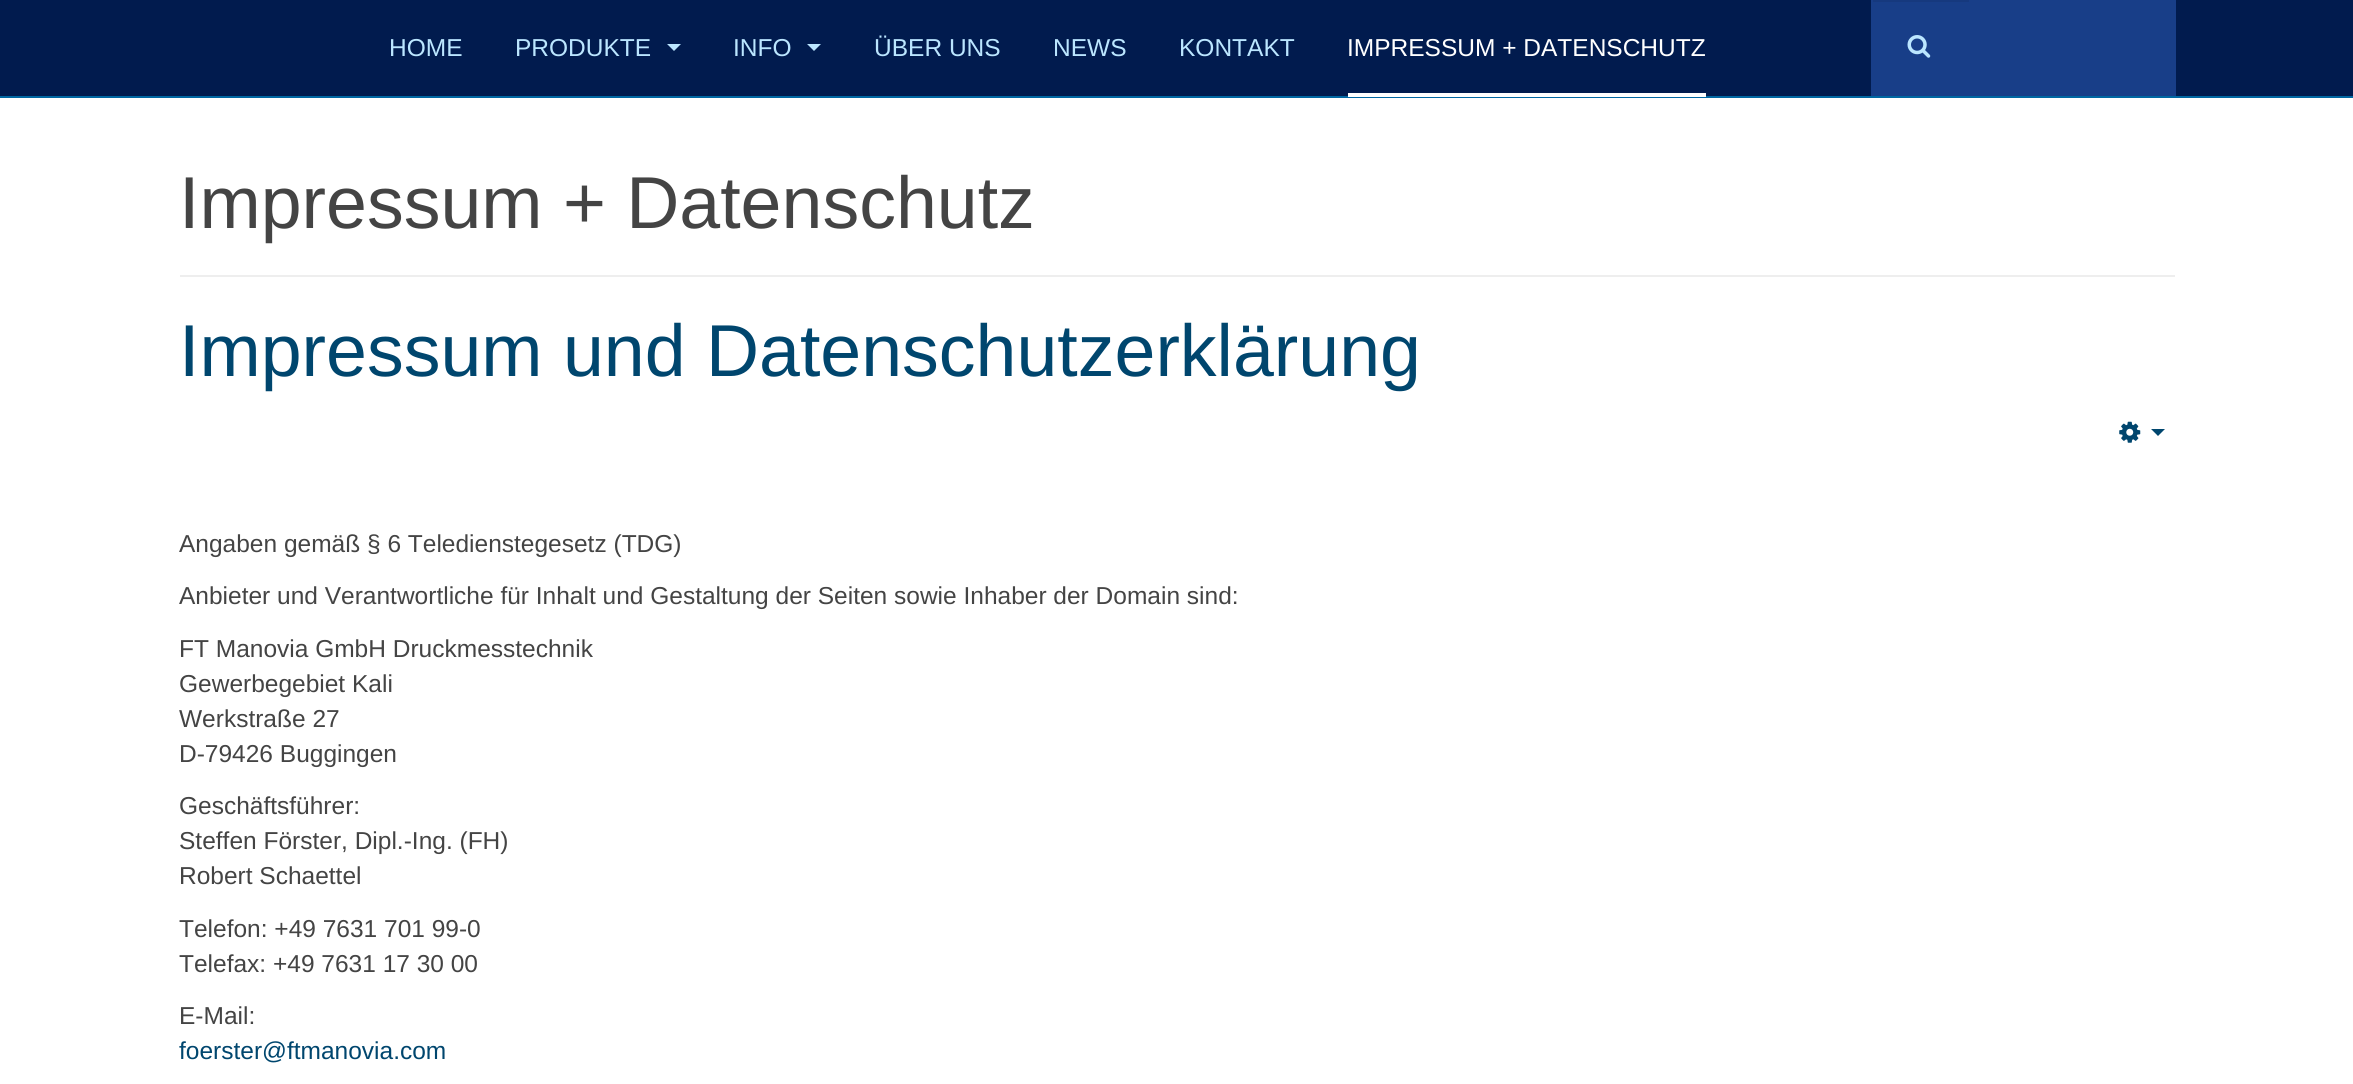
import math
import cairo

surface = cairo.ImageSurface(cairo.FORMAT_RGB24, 2353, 1084)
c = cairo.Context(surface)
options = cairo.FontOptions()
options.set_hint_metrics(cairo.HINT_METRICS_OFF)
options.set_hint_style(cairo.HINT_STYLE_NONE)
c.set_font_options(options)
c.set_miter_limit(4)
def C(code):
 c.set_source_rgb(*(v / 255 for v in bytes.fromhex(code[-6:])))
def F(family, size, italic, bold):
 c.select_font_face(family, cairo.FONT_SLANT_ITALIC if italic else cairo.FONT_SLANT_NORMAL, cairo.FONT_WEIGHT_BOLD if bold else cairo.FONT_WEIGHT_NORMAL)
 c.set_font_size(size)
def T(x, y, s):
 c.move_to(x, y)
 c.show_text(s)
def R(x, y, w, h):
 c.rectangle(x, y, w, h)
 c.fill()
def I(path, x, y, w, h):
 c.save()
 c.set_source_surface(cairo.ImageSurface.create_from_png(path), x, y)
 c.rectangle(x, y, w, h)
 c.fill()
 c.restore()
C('ffffff')
c.paint()
C('011b4e')
R(0,0,2353,96)
C('0067a2')
R(0,96,2353,2)
F('Liberation Sans',24.5,0,0)
C('bbe6ff')
T(389,56,'HOME')
T(515,56,'PRODUKTE')
c.new_path()
c.move_to(667,44)
c.line_to(681,44)
c.line_to(674,51)
c.close_path()
c.fill()
T(733,56,'INFO')
c.new_path()
c.move_to(807,44)
c.line_to(821,44)
c.line_to(814,51)
c.close_path()
c.fill()
T(874,56,'ÜBER UNS')
T(1053,56,'NEWS')
T(1179,56,'KONTAKT')
C('ffffff')
R(1348,93,358,4)
T(1347,56,'IMPRESSUM + DATENSCHUTZ')
C('183e88')
R(1871,0,305,96)
C('16397e')
R(1873,0,96,2)
I('1.png',1907,35,24,23)
C('eeeeee')
R(180,275,1995,2)
F('Liberation Sans',73.5,0,0)
C('444444')
T(179,228,'Impressum + Datenschutz')
C('00466e')
T(179,376,'Impressum und Datenschutzerklärung')
I('2.png',2119,421,22,22)
c.new_path()
c.move_to(2151,429)
c.line_to(2165,429)
c.line_to(2158,436)
c.close_path()
c.fill()
F('Liberation Sans',24.5,0,0)
C('444444')
T(179,552,'Angaben gemäß § 6 Teledienstegesetz (TDG)')
T(179,604,'Anbieter und Verantwortliche für Inhalt und Gestaltung der Seiten sowie Inhaber der Domain sind:')
T(179,657,'FT Manovia GmbH Druckmesstechnik')
T(179,692,'Gewerbegebiet Kali')
T(179,727,'Werkstraße 27')
T(179,762,'D-79426 Buggingen')
T(179,814,'Geschäftsführer:')
T(179,849,'Steffen Förster, Dipl.-Ing. (FH)')
T(179,884,'Robert Schaettel')
T(179,937,'Telefon: +49 7631 701 99-0')
T(179,972,'Telefax: +49 7631 17 30 00')
T(179,1024,'E-Mail:')
C('00466e')
T(179,1059,'foerster@ftmanovia.com')
surface.write_to_png('o.png')
